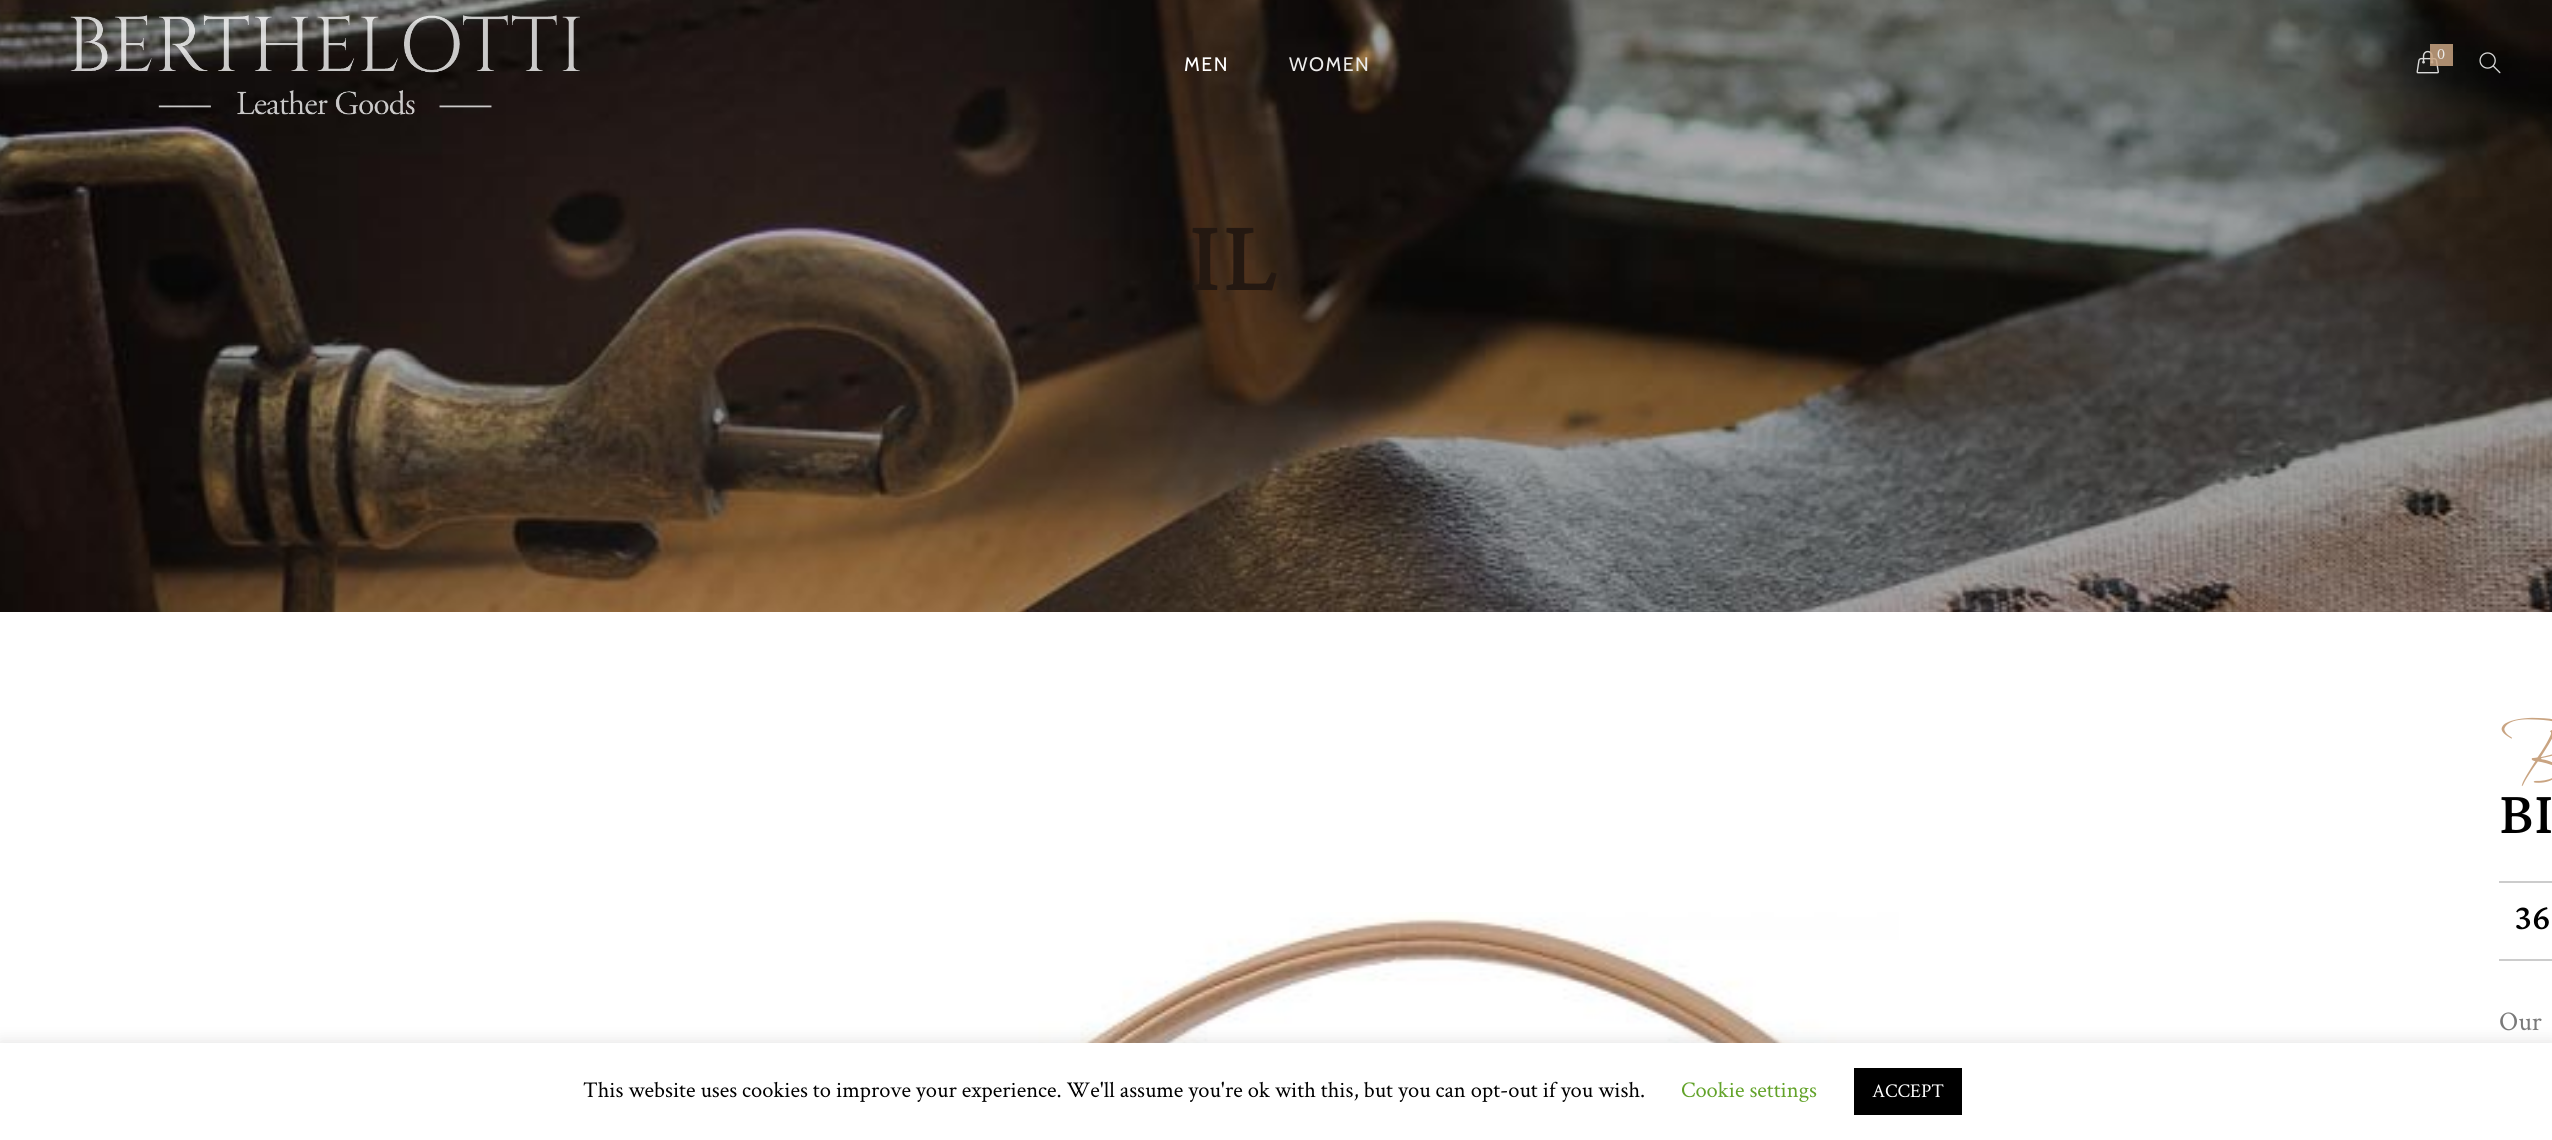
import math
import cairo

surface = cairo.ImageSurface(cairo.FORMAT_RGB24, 2552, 1140)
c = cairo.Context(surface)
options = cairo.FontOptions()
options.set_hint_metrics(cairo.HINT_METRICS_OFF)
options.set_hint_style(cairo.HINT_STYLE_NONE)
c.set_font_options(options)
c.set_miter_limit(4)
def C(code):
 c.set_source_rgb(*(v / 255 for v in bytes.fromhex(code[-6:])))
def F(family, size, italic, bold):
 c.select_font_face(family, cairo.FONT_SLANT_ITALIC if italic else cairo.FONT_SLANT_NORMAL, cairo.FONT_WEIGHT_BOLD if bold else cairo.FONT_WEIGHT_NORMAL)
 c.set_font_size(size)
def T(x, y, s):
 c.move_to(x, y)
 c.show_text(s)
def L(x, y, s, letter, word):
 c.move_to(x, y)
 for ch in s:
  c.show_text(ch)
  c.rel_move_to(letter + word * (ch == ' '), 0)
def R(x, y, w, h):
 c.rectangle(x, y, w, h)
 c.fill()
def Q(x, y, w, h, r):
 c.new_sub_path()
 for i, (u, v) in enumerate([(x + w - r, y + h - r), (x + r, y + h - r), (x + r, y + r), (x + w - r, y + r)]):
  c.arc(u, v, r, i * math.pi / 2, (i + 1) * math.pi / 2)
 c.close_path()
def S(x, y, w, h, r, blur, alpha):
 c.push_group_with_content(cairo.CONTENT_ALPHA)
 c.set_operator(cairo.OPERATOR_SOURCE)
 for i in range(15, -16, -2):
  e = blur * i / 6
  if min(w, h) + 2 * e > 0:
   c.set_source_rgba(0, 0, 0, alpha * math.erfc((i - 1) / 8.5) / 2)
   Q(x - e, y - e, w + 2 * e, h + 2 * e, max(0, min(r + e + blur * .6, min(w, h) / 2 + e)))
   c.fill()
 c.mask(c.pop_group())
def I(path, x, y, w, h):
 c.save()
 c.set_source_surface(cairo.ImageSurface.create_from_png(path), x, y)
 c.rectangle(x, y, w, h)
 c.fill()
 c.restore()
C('ffffff')
c.paint()
I('4.png',0,0,2552,612)
I('1.png',70,15,510,100)
I('2.png',2416,50,23,24)
c.set_source_rgba(0.788,0.643,0.51,0.84)
R(2430,44,23,22)
F('Crimson Text',16,0,0)
C('ecebea')
T(2437,59,'0')
I('3.png',2479,52,22,22)
F('Cabin',19.5,0,0)
C('ffffff')
L(1184,71,'MEN',1.5,0)
C('ecebea')
L(1289,71,'WOMEN',1.5,0)
F('Lateef',135,0,0)
C('241811')
T(1188,290,'IL')
I('5.png',959,912,940,131)
F('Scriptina',90,0,0)
C('c9a482')
T(2499,782,'B')
F('Lateef',78,0,0)
C('000000')
T(2499,833,'BI')
C('cccccc')
R(2499,881,53,2)
R(2499,959,53,2)
F('Lateef',46,0,0)
C('000000')
T(2514,929,'36')
F('Crimson Text',27,0,0)
C('797979')
T(2499,1030,'Our')
C('acabab')
S(0,1041,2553,98,0,7.5,.3)
C('ffffff')
R(0,1043,2552,97)
F('Crimson Text',22.5,0,0)
C('000000')
T(583,1097,'This website uses cookies to improve your experience. We\'ll assume you\'re ok with this, but you can opt-out if you wish.')
C('62a329')
T(1681,1097,'Cookie settings')
C('000000')
R(1854,1068,108,47)
F('Crimson Text',19.5,0,0)
C('ffffff')
T(1872,1097,'ACCEPT')
surface.write_to_png('o.png')
